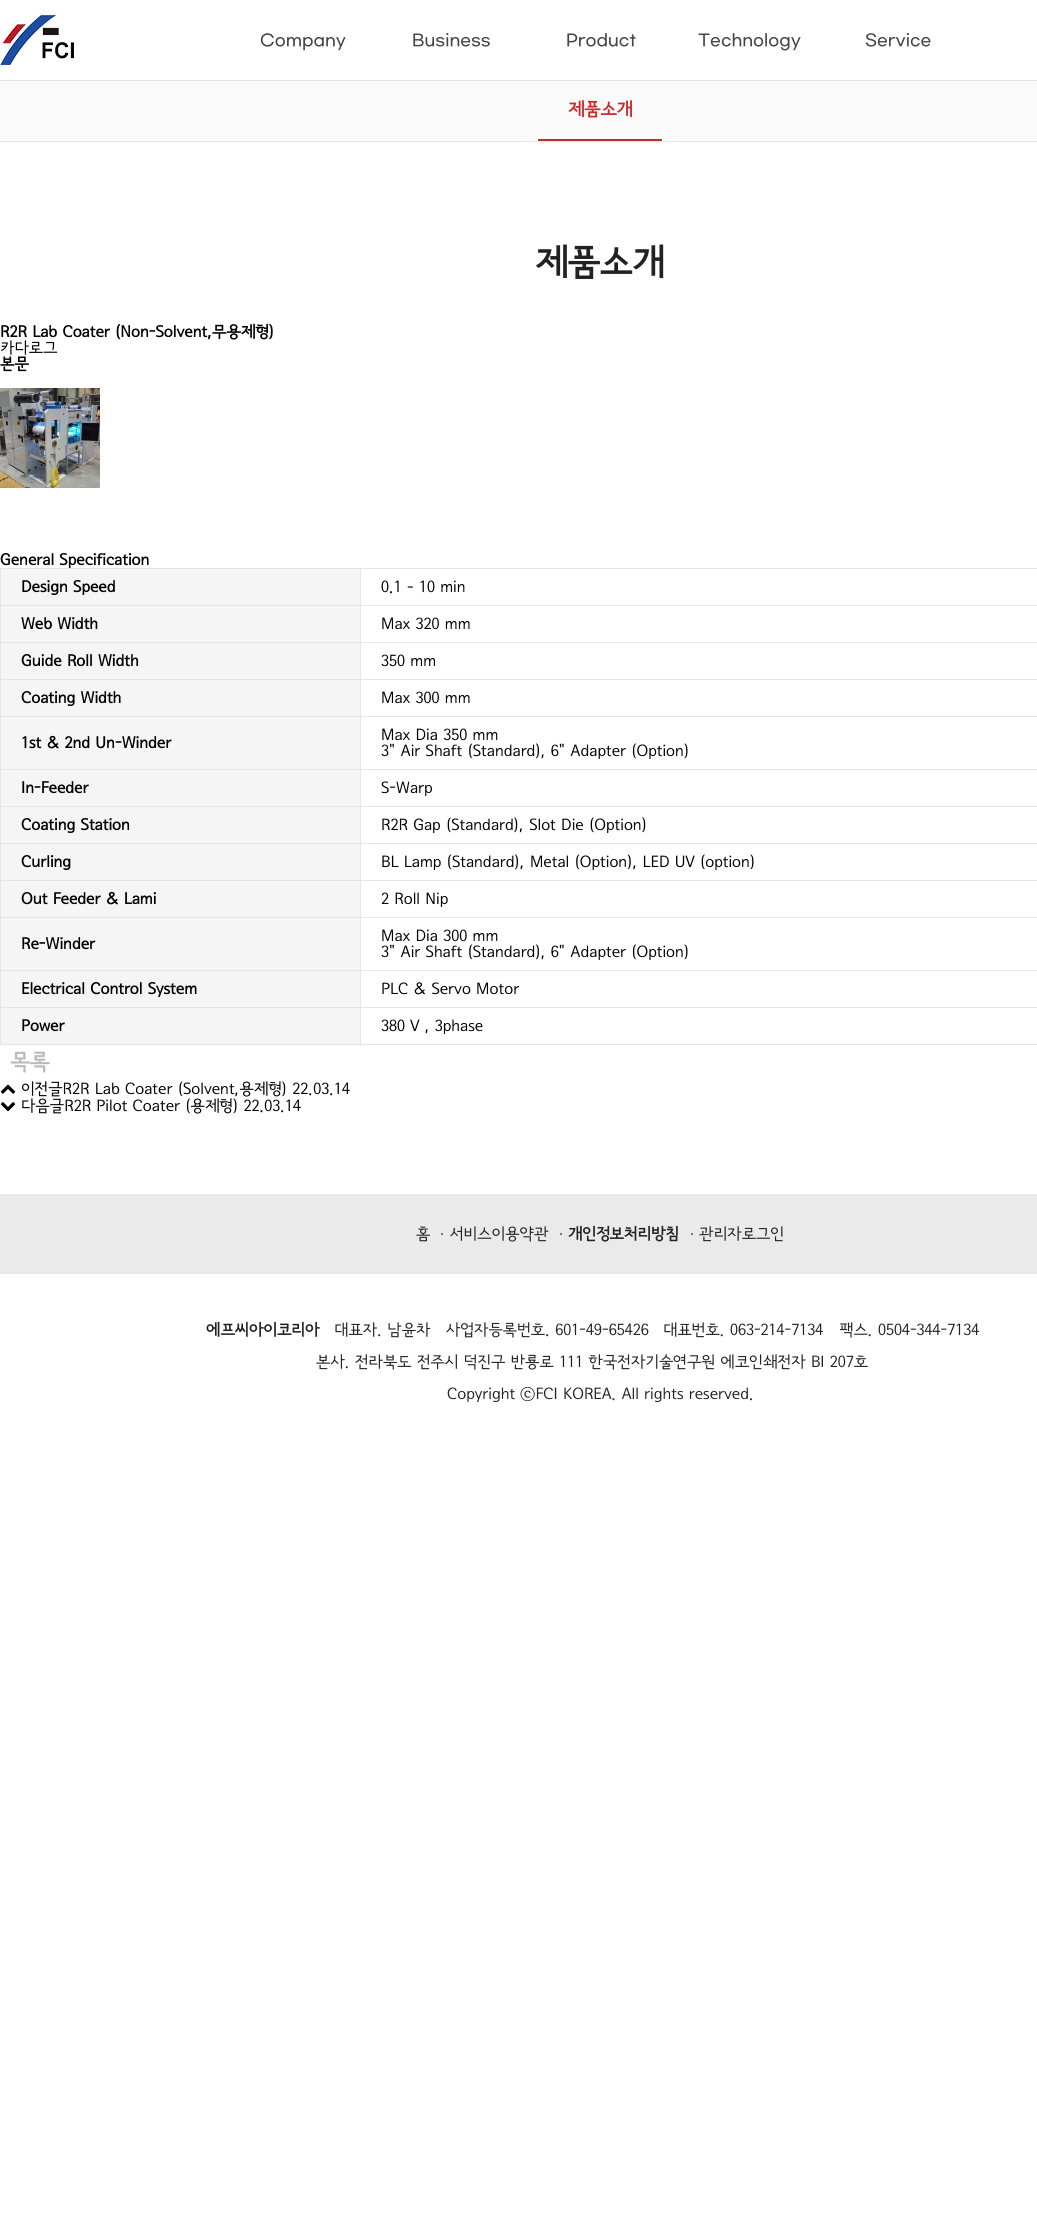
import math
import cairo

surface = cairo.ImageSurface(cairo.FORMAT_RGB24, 1037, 2235)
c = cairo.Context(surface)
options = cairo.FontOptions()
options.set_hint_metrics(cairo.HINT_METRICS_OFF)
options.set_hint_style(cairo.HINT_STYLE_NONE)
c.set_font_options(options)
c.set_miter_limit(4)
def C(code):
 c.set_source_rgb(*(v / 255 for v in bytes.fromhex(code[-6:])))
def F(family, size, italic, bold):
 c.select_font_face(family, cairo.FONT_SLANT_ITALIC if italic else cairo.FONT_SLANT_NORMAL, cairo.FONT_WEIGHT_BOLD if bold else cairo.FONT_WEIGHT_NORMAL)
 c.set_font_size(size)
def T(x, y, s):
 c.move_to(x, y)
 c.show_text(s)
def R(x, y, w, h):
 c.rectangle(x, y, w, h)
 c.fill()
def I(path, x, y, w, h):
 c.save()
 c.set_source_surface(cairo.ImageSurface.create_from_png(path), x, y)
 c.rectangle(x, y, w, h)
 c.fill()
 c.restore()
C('ffffff')
c.paint()
C('e5e5e5')
R(0,80,1037,1)
I('1.png',0,15,74,50)
F('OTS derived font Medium',16,0,0)
C('444444')
T(260,45,'Company')
T(412,45,'Business')
T(566,45,'Product')
T(698,45,'Technology')
T(865,45,'Service')
C('fafafa')
R(0,81,1037,60)
C('e5e5e5')
R(0,141,1037,1)
C('cc2929')
R(538,139,124,2)
F('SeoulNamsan',18,0,1)
T(568,115,'제품소개')
F('SeoulNamsan',36,0,1)
C('222222')
T(535,274,'제품소개')
F('SeoulNamsan',16,0,1)
C('000000')
T(0,337,'R2R Lab Coater (Non-Solvent,무용제형)')
F('SeoulNamsan',16,0,0)
T(0,353,'카다로그')
F('SeoulNamsan',16,0,1)
T(0,369,'본문')
I('2.png',0,388,100,100)
T(0,565,'General Specification')
C('f5f5f5')
R(1,569,359,36)
C('e5e5e5')
R(360,568,677,1)
R(360,605,677,1)
R(360,642,677,1)
R(360,679,677,1)
R(360,716,677,1)
R(360,769,677,1)
R(360,806,677,1)
R(360,843,677,1)
R(360,880,677,1)
R(360,917,677,1)
R(360,970,677,1)
R(360,1007,677,1)
R(360,1044,677,1)
R(360,1007,1,38)
R(0,1007,361,1)
R(360,970,1,38)
R(0,970,361,1)
R(360,917,1,54)
R(0,917,361,1)
R(360,880,1,38)
R(0,880,361,1)
R(360,843,1,38)
R(0,843,361,1)
R(360,806,1,38)
R(0,806,361,1)
R(360,769,1,38)
R(0,769,361,1)
R(360,716,1,54)
R(0,716,361,1)
R(360,679,1,38)
R(0,679,361,1)
R(360,642,1,38)
R(0,642,361,1)
R(360,605,1,38)
R(0,605,361,1)
R(360,568,1,38)
R(0,568,361,1)
R(0,1044,361,1)
R(0,1007,1,38)
R(0,970,1,38)
R(0,917,1,54)
R(0,880,1,38)
R(0,843,1,38)
R(0,806,1,38)
R(0,769,1,38)
R(0,716,1,54)
R(0,679,1,38)
R(0,642,1,38)
R(0,605,1,38)
R(0,568,1,38)
C('000000')
T(21,592,'Design Speed')
F('SeoulNamsan',16,0,0)
T(381,592,'0.1 – 10 min')
C('f5f5f5')
R(1,606,359,36)
F('SeoulNamsan',16,0,1)
C('000000')
T(21,629,'Web Width')
F('SeoulNamsan',16,0,0)
T(381,629,'Max 320 mm')
C('f5f5f5')
R(1,643,359,36)
F('SeoulNamsan',16,0,1)
C('000000')
T(21,666,'Guide Roll Width')
F('SeoulNamsan',16,0,0)
T(381,666,'350 mm')
C('f5f5f5')
R(1,680,359,36)
F('SeoulNamsan',16,0,1)
C('000000')
T(21,703,'Coating Width')
F('SeoulNamsan',16,0,0)
T(381,703,'Max 300 mm')
C('f5f5f5')
R(1,717,359,52)
F('SeoulNamsan',16,0,1)
C('000000')
T(21,748,'1st & 2nd Un-Winder')
F('SeoulNamsan',16,0,0)
T(381,740,'Max Dia 350 mm')
T(381,756,'3" Air Shaft (Standard), 6" Adapter (Option)')
C('f5f5f5')
R(1,770,359,36)
F('SeoulNamsan',16,0,1)
C('000000')
T(21,793,'In-Feeder')
F('SeoulNamsan',16,0,0)
T(381,793,'S-Warp')
C('f5f5f5')
R(1,807,359,36)
F('SeoulNamsan',16,0,1)
C('000000')
T(21,830,'Coating Station')
F('SeoulNamsan',16,0,0)
T(381,830,'R2R Gap (Standard), Slot Die (Option)')
C('f5f5f5')
R(1,844,359,36)
F('SeoulNamsan',16,0,1)
C('000000')
T(21,867,'Curling')
F('SeoulNamsan',16,0,0)
T(381,867,'BL Lamp (Standard), Metal (Option), LED UV (option)')
C('f5f5f5')
R(1,881,359,36)
F('SeoulNamsan',16,0,1)
C('000000')
T(21,904,'Out Feeder & Lami')
F('SeoulNamsan',16,0,0)
T(381,904,'2 Roll Nip')
C('f5f5f5')
R(1,918,359,52)
F('SeoulNamsan',16,0,1)
C('000000')
T(21,949,'Re-Winder')
F('SeoulNamsan',16,0,0)
T(381,941,'Max Dia 300 mm')
T(381,957,'3" Air Shaft (Standard), 6" Adapter (Option)')
C('f5f5f5')
R(1,971,359,36)
F('SeoulNamsan',16,0,1)
C('000000')
T(21,994,'Electrical Control System')
F('SeoulNamsan',16,0,0)
T(381,994,'PLC & Servo Motor')
C('f5f5f5')
R(1,1008,359,36)
F('SeoulNamsan',16,0,1)
C('000000')
T(21,1031,'Power')
F('SeoulNamsan',16,0,0)
T(381,1031,'380 V , 3phase')
F('SeoulNamsan',22,0,1)
C('bababa')
T(10,1069,'목록')
I('3.png',0,1084,16,10)
F('SeoulNamsan',16,0,0)
C('000000')
T(21,1094,'이전글R2R Lab Coater (Solvent,용제형) 22.03.14')
I('4.png',0,1102,16,10)
T(21,1111,'다음글R2R Pilot Coater (용제형) 22.03.14')
C('eaeaea')
R(0,1194,1037,80)
C('222222')
T(416,1239,'홈')
I('5.png',441,1233,2,2)
T(450,1239,'서비스이용약관')
I('5.png',560,1233,2,2)
F('SeoulNamsan',16,0,1)
T(568,1239,'개인정보처리방침')
I('5.png',691,1233,2,2)
F('SeoulNamsan',16,0,0)
T(699,1239,'관리자로그인')
F('SeoulNamsan',16,0,1)
T(206,1335,'에프씨아이코리아')
F('SeoulNamsan',16,0,0)
T(334,1335,'대표자. 남윤차')
T(446,1335,'사업자등록번호. 601-49-65426')
T(663,1335,'대표번호. 063-214-7134')
T(839,1335,'팩스. 0504-344-7134')
T(316,1367,'본사. 전라북도 전주시 덕진구 반룡로 111 한국전자기술연구원 에코인쇄전자 BI 207호')
T(447,1399,'Copyright ⓒFCI KOREA. All rights reserved.')
surface.write_to_png('o.png')
